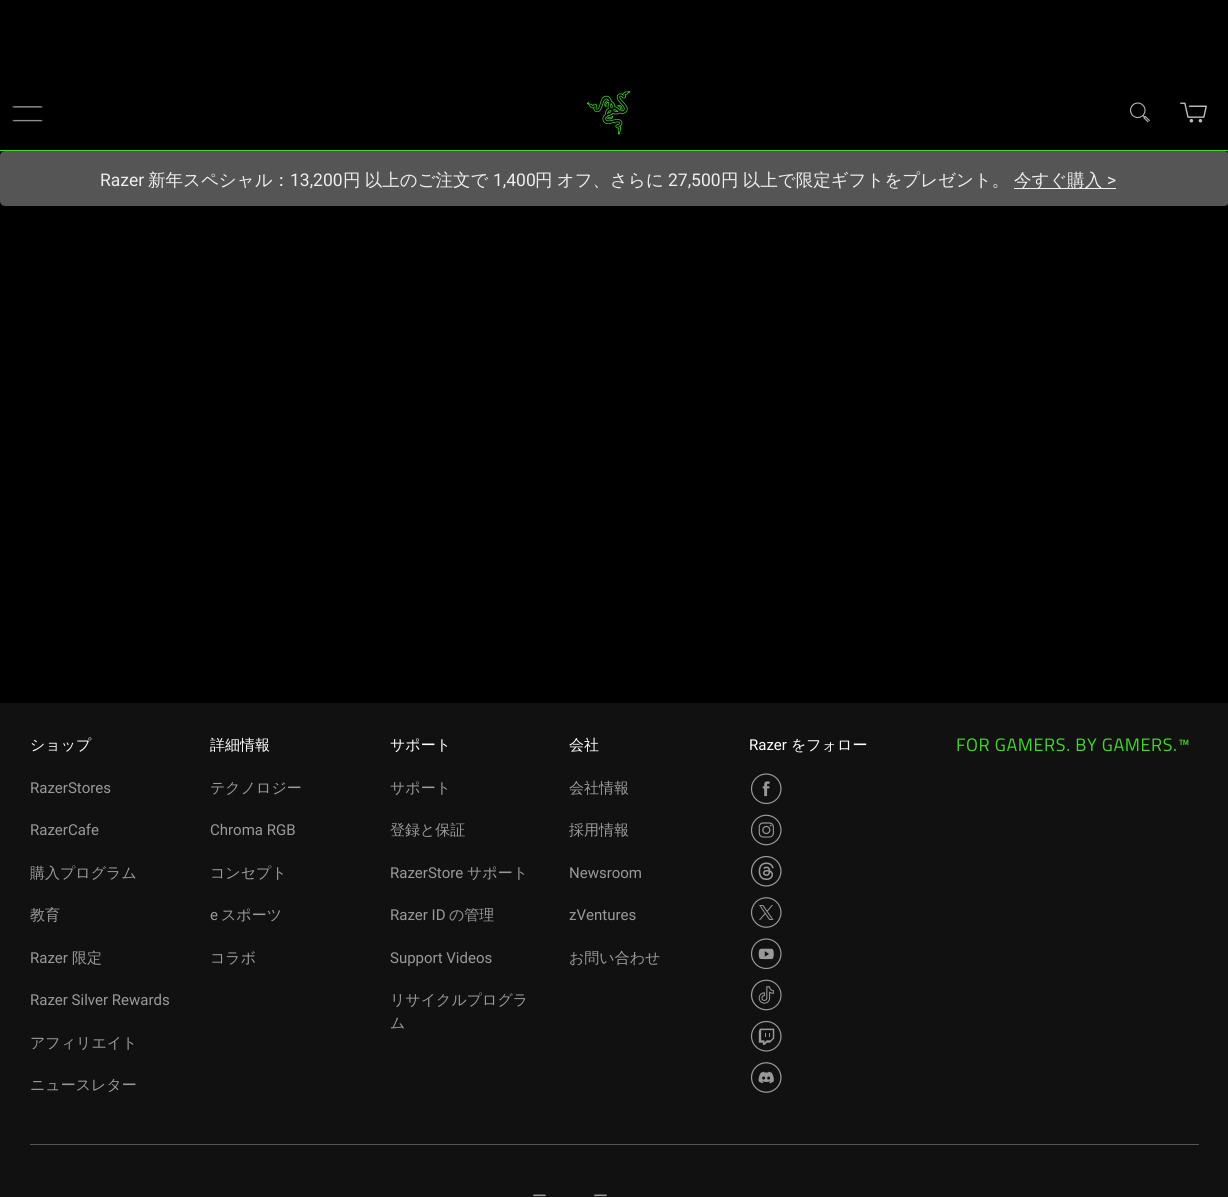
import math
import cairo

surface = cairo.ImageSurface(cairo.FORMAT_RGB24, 1228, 1197)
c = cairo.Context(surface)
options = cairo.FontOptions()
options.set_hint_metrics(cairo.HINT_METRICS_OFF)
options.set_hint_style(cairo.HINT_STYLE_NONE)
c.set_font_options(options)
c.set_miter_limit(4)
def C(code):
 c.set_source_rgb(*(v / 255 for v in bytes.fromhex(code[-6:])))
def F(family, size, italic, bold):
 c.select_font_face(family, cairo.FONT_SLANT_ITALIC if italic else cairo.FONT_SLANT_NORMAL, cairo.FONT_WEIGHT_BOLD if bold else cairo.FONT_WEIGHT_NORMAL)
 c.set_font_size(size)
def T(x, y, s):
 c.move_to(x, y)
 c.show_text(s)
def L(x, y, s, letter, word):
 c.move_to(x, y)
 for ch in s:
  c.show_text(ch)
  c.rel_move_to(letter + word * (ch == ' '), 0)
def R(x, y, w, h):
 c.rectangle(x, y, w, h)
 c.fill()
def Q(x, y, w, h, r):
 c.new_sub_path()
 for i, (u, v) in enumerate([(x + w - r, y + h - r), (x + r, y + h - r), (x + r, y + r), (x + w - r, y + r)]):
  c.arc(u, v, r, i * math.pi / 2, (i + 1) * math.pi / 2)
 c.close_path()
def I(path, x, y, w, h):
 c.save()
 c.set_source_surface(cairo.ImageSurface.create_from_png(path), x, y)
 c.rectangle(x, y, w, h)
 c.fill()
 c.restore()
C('000000')
c.paint()
C('44d62c')
R(0,150,1228,1)
I('1.png',12,106,31,16)
I('2.png',587,91,43,44)
I('3.png',1130,102,20,21)
I('4.png',1180,102,27,21)
C('555555')
Q(0,151,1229,55,5)
c.fill()
F('Roboto',17.5,0,0)
C('eeeeee')
T(100,186,'Razer')
F('WenQuanYi Zen Hei Medium',17.5,0,0)
T(148,186,'新年スペシャル：')
F('Roboto',17.5,0,0)
T(290,186,'13,200')
F('WenQuanYi Zen Hei Medium',17.5,0,0)
L(343,186,'円 以上のご注文で',0,-1)
F('Roboto',17.5,0,0)
T(493,186,'1,400')
F('WenQuanYi Zen Hei Medium',17.5,0,0)
L(535,186,'円 オフ、さらに',0,-1)
F('Roboto',17.5,0,0)
T(668,186,'27,500')
F('WenQuanYi Zen Hei Medium',17.5,0,0)
L(721,186,'円 以上で限定ギフトをプレゼント。',0,-1)
R(1014,188,102,1)
T(1014,186,'今すぐ購入')
F('Roboto',17.5,0,0)
T(1107,186,'>')
C('111111')
R(0,703,1228,494)
F('WenQuanYi Zen Hei Medium',15,0,0)
C('ffffff')
T(30,750,'ショップ')
F('Roboto',15,0,0)
C('999999')
T(30,793,'RazerStores')
T(30,835,'RazerCafe')
F('WenQuanYi Zen Hei Medium',15,0,0)
T(30,878,'購入プログラム')
T(30,920,'教育')
F('Roboto',15,0,0)
T(30,963,'Razer')
F('WenQuanYi Zen Hei Medium',15,0,0)
T(72,963,'限定')
F('Roboto',15,0,0)
T(30,1005,'Razer Silver Rewards')
F('WenQuanYi Zen Hei Medium',15,0,0)
T(30,1048,'アフィリエイト')
T(30,1090,'ニュースレター')
C('ffffff')
T(210,750,'詳細情報')
C('999999')
T(210,793,'テクノロジー')
F('Roboto',15,0,0)
T(210,835,'Chroma RGB')
F('WenQuanYi Zen Hei Medium',15,0,0)
T(210,878,'コンセプト')
F('Roboto',15,0,0)
T(210,920,'e')
F('WenQuanYi Zen Hei Medium',15,0,0)
T(221,920,'スポーツ')
T(210,963,'コラボ')
C('ffffff')
T(390,750,'サポート')
C('999999')
T(390,793,'サポート')
T(390,835,'登録と保証')
F('Roboto',15,0,0)
T(390,878,'RazerStore')
F('WenQuanYi Zen Hei Medium',15,0,0)
T(467,878,'サポート')
F('Roboto',15,0,0)
T(390,920,'Razer ID')
F('WenQuanYi Zen Hei Medium',15,0,0)
T(449,920,'の管理')
F('Roboto',15,0,0)
T(390,963,'Support Videos')
F('WenQuanYi Zen Hei Medium',15,0,0)
T(390,1005,'リサイクルプログラ')
T(390,1028,'ム')
C('ffffff')
T(569,750,'会社')
C('999999')
T(569,793,'会社情報')
T(569,835,'採用情報')
F('Roboto',15,0,0)
T(569,878,'Newsroom')
T(569,920,'zVentures')
F('WenQuanYi Zen Hei Medium',15,0,0)
T(569,963,'お問い合わせ')
F('Roboto',15,0,0)
C('ffffff')
T(749,750,'Razer')
F('WenQuanYi Zen Hei Medium',15,0,0)
T(791,750,'をフォロー')
I('5.png',750,773,32,32)
I('6.png',750,814,32,32)
I('7.png',750,855,32,32)
I('8.png',750,897,32,31)
I('9.png',750,938,32,32)
I('10.png',750,979,32,32)
I('11.png',750,1020,32,32)
I('12.png',750,1062,32,31)
F('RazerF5',18,0,0)
C('44d62c')
L(956,751,'FOR GAMERS. BY GAMERS.™',.6,0)
C('555555')
R(30,1144,1169,1)
F('WenQuanYi Zen Hei Medium',15,0,0)
C('999999')
T(532,1201,'ー')
T(593,1201,'ー')
surface.write_to_png('o.png')
